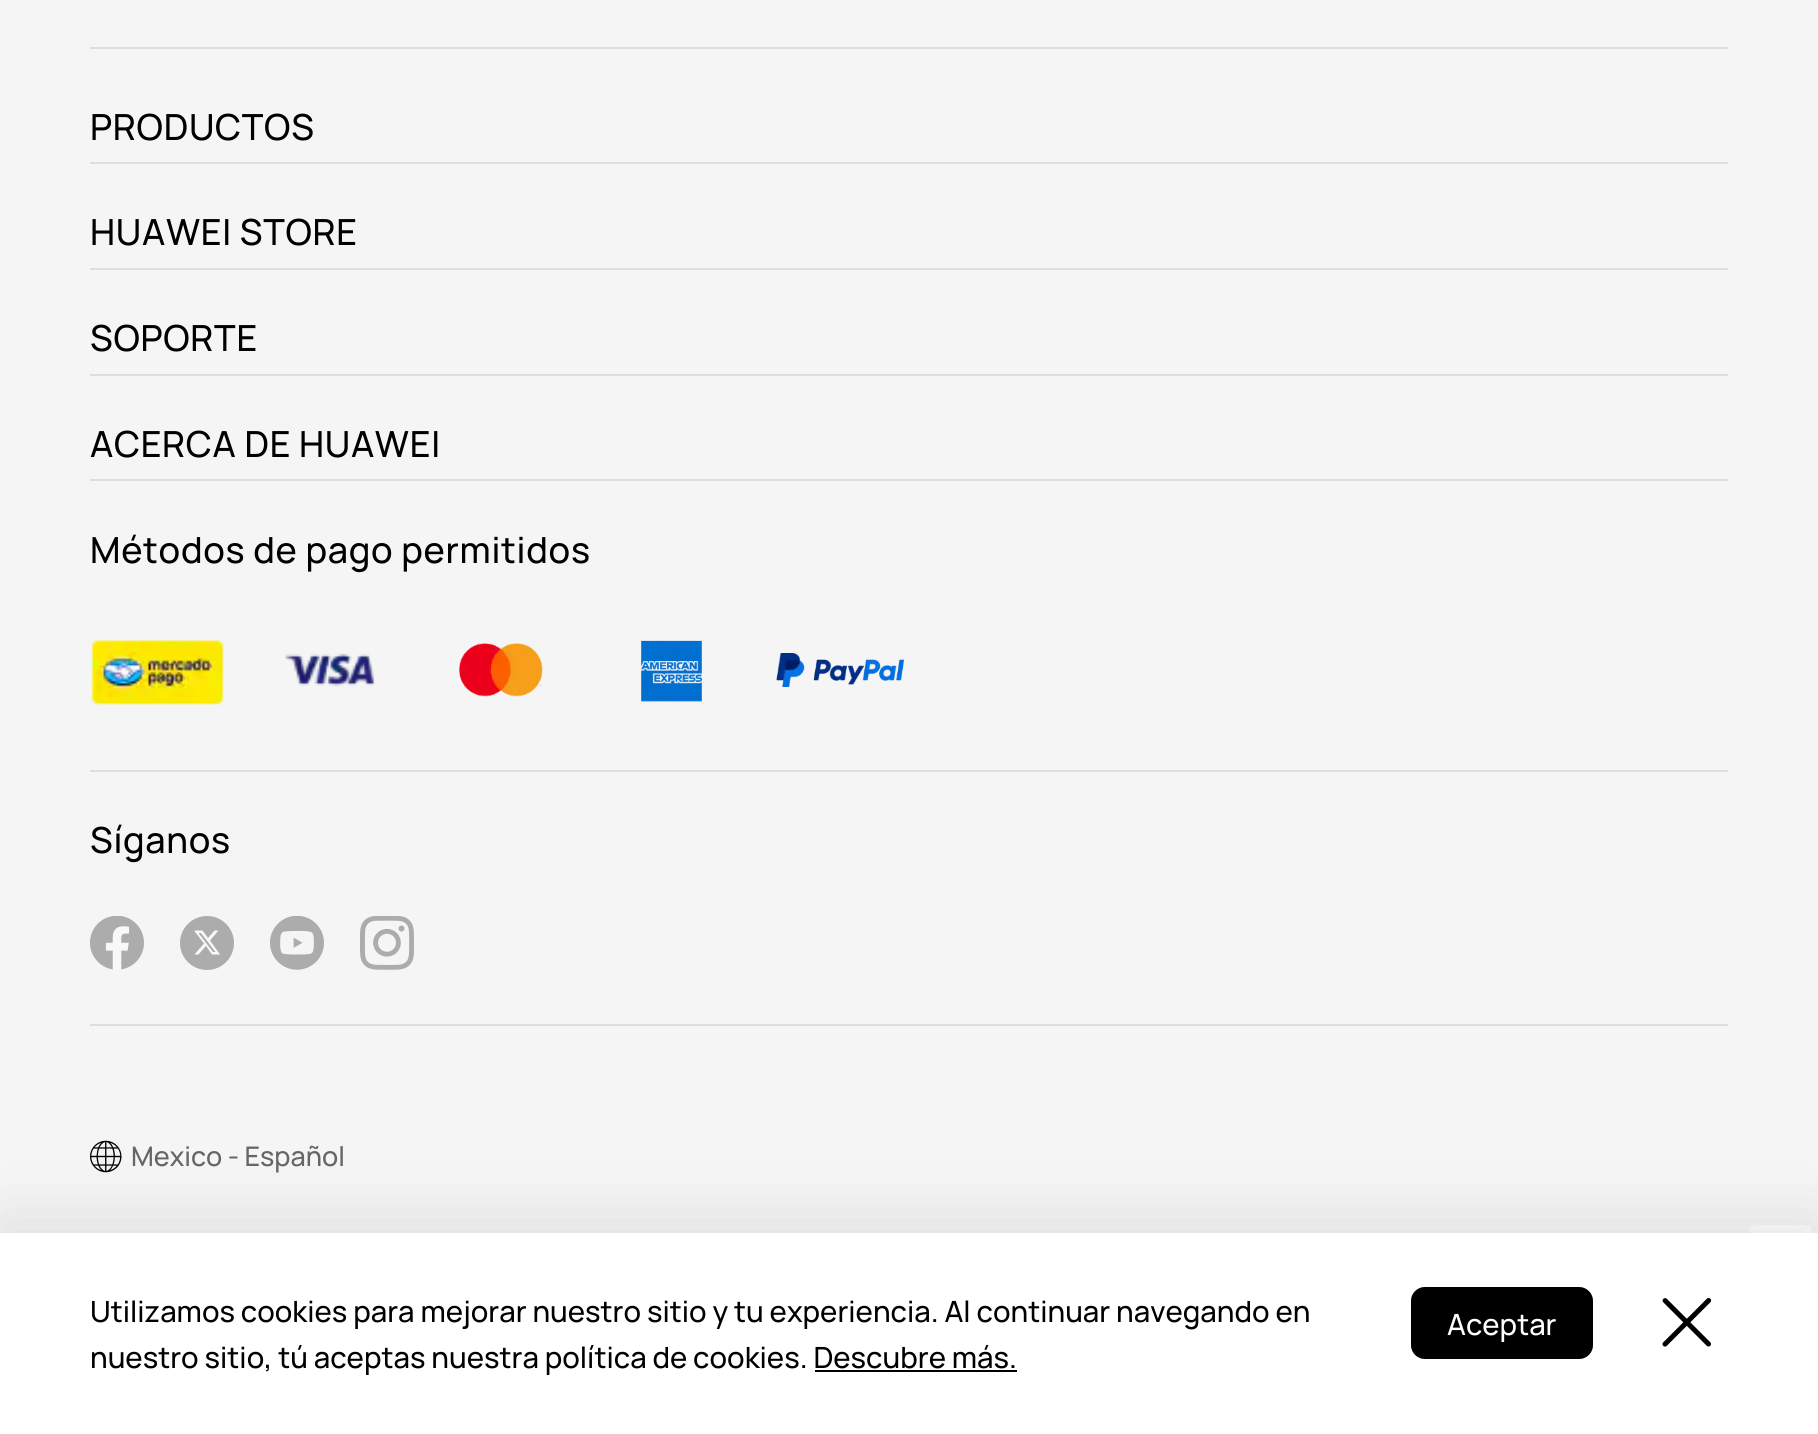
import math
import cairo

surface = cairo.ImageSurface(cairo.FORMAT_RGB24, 1818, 1434)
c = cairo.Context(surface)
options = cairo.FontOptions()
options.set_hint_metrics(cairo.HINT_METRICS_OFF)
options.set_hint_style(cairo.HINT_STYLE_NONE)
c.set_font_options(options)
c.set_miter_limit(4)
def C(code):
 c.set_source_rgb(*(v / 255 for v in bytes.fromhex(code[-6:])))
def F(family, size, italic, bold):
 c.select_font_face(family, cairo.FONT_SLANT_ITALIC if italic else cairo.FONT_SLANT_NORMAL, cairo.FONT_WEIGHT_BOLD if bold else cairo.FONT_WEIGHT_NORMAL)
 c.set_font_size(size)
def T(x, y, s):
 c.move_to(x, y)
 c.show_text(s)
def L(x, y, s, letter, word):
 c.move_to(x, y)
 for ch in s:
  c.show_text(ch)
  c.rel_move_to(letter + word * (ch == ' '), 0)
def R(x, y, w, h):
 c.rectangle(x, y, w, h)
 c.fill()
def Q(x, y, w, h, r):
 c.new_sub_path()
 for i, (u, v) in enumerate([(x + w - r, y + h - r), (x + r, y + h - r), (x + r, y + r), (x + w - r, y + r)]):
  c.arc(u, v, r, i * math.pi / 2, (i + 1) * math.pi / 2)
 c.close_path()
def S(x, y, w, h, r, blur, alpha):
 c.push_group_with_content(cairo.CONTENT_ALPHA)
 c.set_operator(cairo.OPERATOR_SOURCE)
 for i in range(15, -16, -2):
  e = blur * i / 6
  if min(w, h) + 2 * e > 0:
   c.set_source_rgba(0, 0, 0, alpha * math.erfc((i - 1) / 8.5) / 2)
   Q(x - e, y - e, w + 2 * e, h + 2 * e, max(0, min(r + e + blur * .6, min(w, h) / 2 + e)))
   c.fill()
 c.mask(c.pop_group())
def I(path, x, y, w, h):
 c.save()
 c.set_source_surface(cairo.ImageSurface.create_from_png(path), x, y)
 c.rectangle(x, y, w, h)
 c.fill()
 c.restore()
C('f5f5f5')
c.paint()
C('dddddd')
R(90,47,1638,2)
R(90,162,1638,2)
F('Manrope Medium',36,0,0)
C('000000')
L(90,140,'PRODUCTOS',.7,0)
C('dddddd')
R(90,268,1638,2)
C('000000')
L(90,245,'HUAWEI STORE',.7,0)
C('dddddd')
R(90,374,1638,2)
C('000000')
L(90,351,'SOPORTE',.7,0)
C('dddddd')
R(90,479,1638,2)
C('000000')
L(90,457,'ACERCA DE HUAWEI',.7,0)
C('dddddd')
R(90,1024,1638,2)
R(90,770,1638,2)
C('000000')
L(90,563,'Métodos de pago permitidos',.7,0)
I('1.png',91,640,133,65)
I('2.png',285,653,90,34)
I('3.png',459,643,84,54)
I('4.png',641,640,61,62)
I('5.png',776,653,128,34)
L(90,853,'Síganos',.7,0)
I('6.png',90,916,54,54)
C('acacac')
c.arc(207,943,27,0,2 * math.pi)
c.fill()
C('f8f8f8')
c.new_path()
c.move_to(220,954.5)
c.line_to(212,954.5)
c.line_to(206,946)
c.line_to(198.5,954.5)
c.line_to(194.5,954.5)
c.line_to(204,943.5)
c.line_to(194,930.5)
c.line_to(202.5,930.5)
c.line_to(208,938)
c.line_to(214.5,930.5)
c.line_to(218.5,930.5)
c.line_to(210,940.5)
c.close_path()
c.move_to(198.5,933)
c.line_to(213,952)
c.line_to(215.5,952)
c.line_to(201,933)
c.close_path()
c.fill()
I('7.png',270,916,54,54)
I('8.png',360,916,54,54)
I('9.png',90,1140,32,33)
F('Manrope Medium',27,0,0)
C('666666')
T(131,1166,'Mexico - Español')
C('fcfcfc')
c.new_path()
c.move_to(1748,1380)
c.line_to(1748,1234)
c.curve_to(1748,1230,1752,1225,1757,1225)
c.line_to(1811,1225)
c.line_to(1811,1389)
c.line_to(1757,1389)
c.curve_to(1752,1389,1748,1385,1748,1380)
c.close_path()
c.fill()
C('000000')
S(0,1224,1818,203,0,34,.1)
C('ffffff')
R(0,1233,1818,201)
F('Manrope Medium',29.25,0,0)
C('000000')
T(90,1322,'Utilizamos cookies para mejorar nuestro sitio y tu experiencia. Al continuar navegando en')
T(90,1368,'nuestro sitio, tú aceptas nuestra política de cookies. Descubre más.')
R(815,1370,202,2)
Q(1411,1287,182,72,14)
c.fill()
Q(1412,1288,180,70,13)
c.set_source_rgba(0,0,0,0.3)
c.stroke()
C('ffffff')
T(1447,1335,'Aceptar')
I('10.png',1662,1298,50,49)
surface.write_to_png('o.png')
